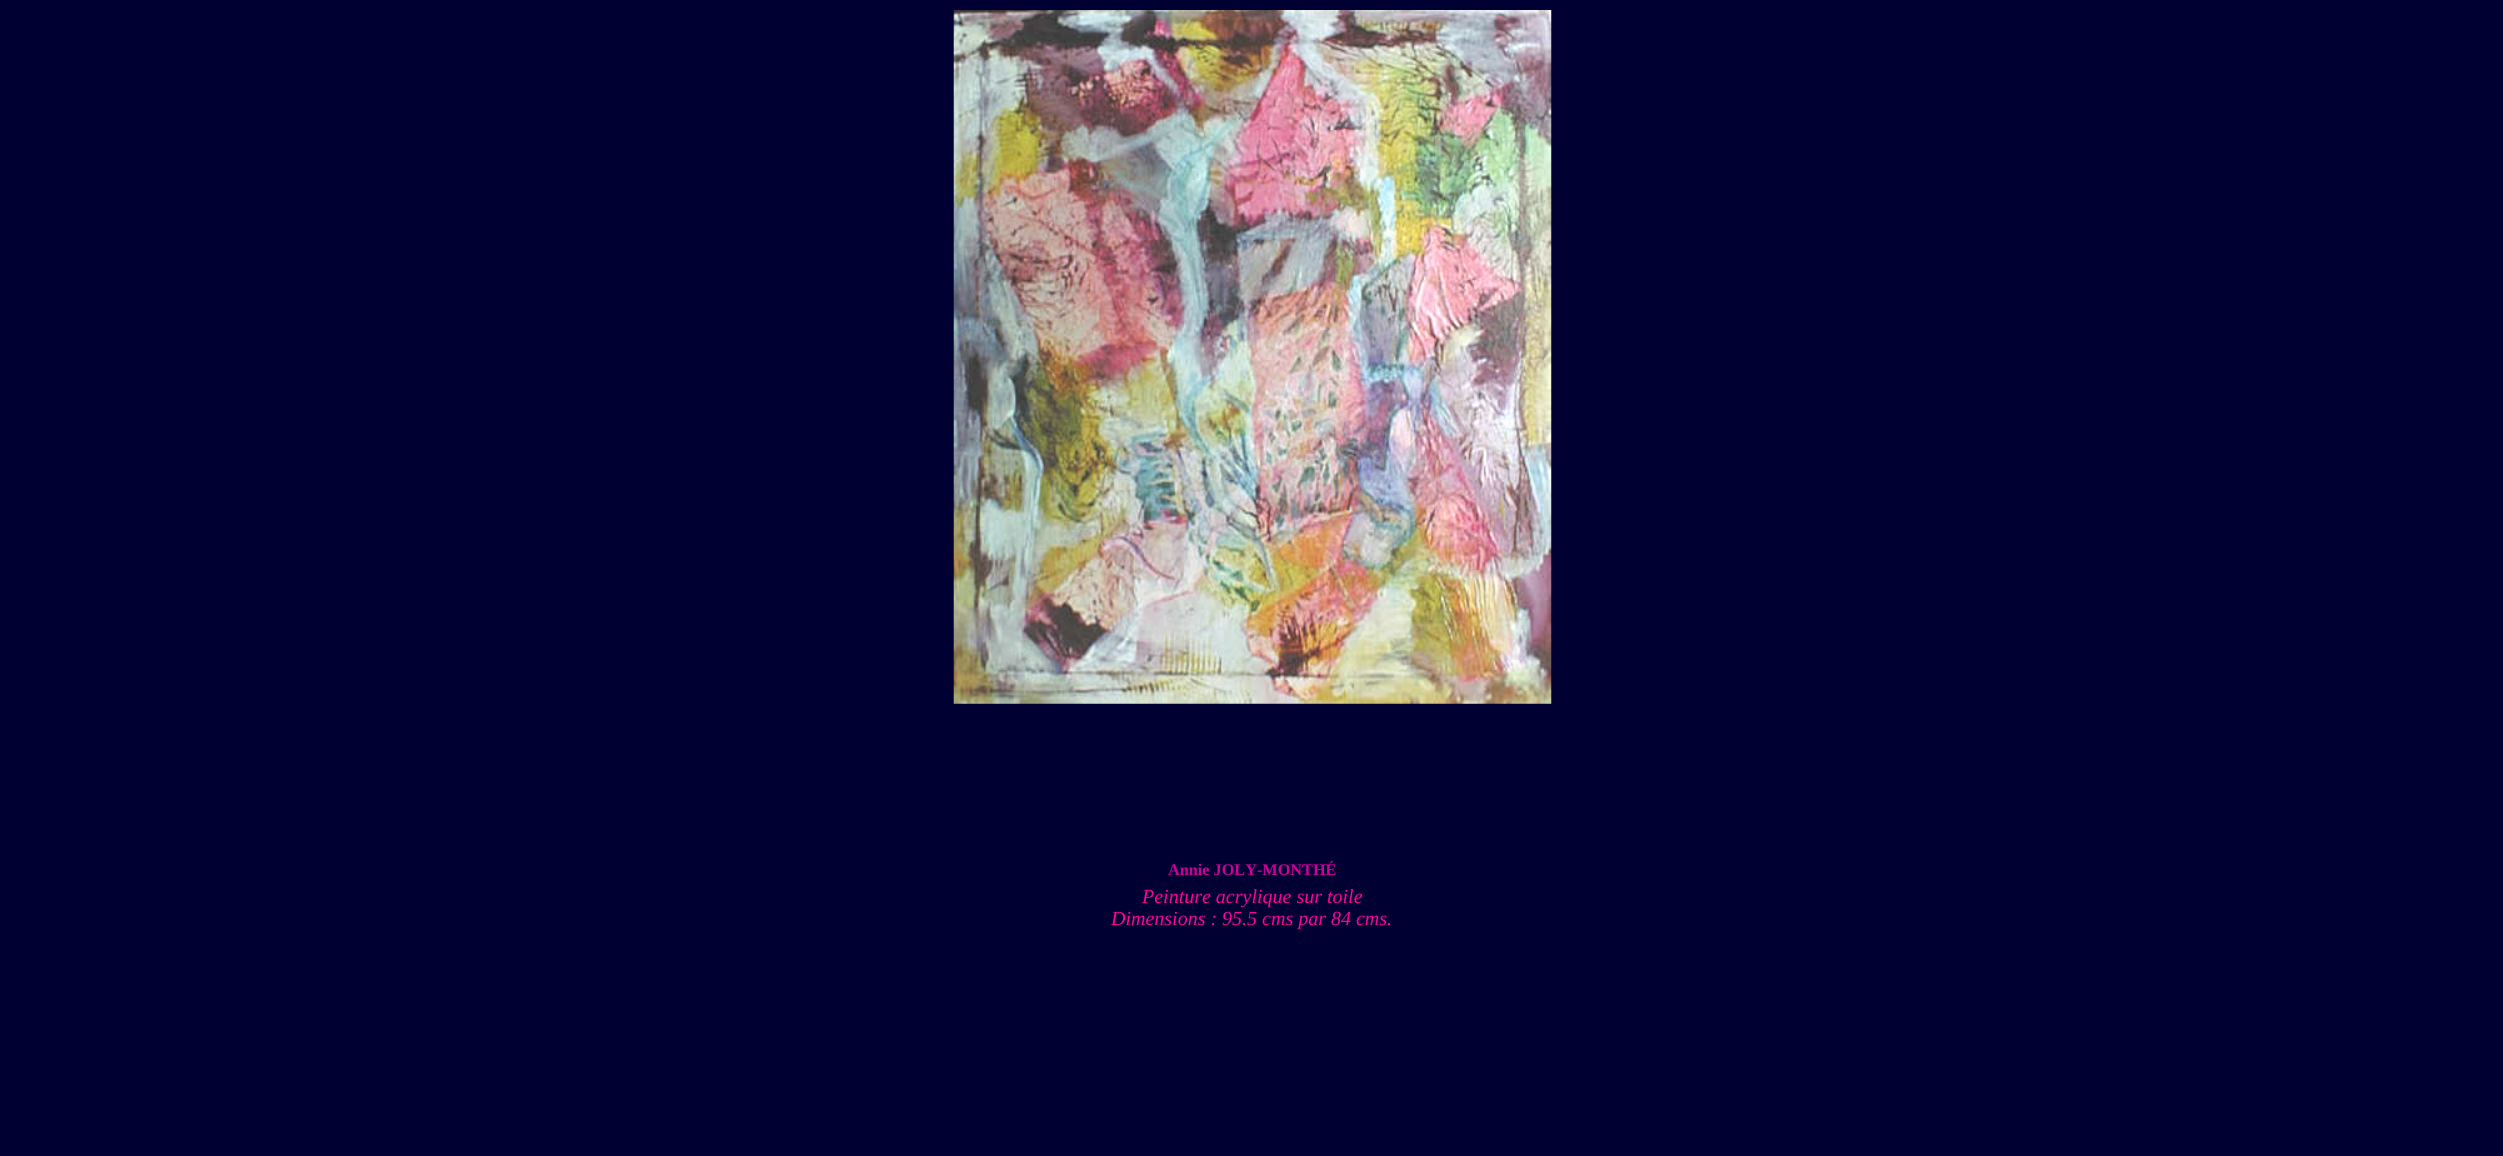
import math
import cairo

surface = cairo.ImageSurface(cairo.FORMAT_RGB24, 2503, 1156)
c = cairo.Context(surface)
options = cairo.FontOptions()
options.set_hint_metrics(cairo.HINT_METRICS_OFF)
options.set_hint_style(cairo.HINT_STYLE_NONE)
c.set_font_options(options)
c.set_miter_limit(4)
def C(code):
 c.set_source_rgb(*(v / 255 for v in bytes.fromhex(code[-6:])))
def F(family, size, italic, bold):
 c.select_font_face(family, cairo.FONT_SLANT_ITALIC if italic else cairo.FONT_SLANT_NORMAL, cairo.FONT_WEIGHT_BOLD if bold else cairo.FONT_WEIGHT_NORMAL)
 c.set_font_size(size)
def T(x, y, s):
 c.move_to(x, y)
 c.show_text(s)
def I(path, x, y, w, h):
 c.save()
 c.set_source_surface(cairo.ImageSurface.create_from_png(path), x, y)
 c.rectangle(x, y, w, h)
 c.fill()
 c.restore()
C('000033')
c.paint()
I('1.png',953,10,599,694)
F('Liberation Serif',16.25,0,1)
C('cc0099')
T(1168,875,'Annie JOLY-MONTHÉ')
F('Liberation Serif',20,1,0)
C('ff0099')
T(1142,903,'Peinture acrylique sur toile')
T(1111,925,'Dimensions : 95.5 cms par 84 cms.')
surface.write_to_png('o.png')
